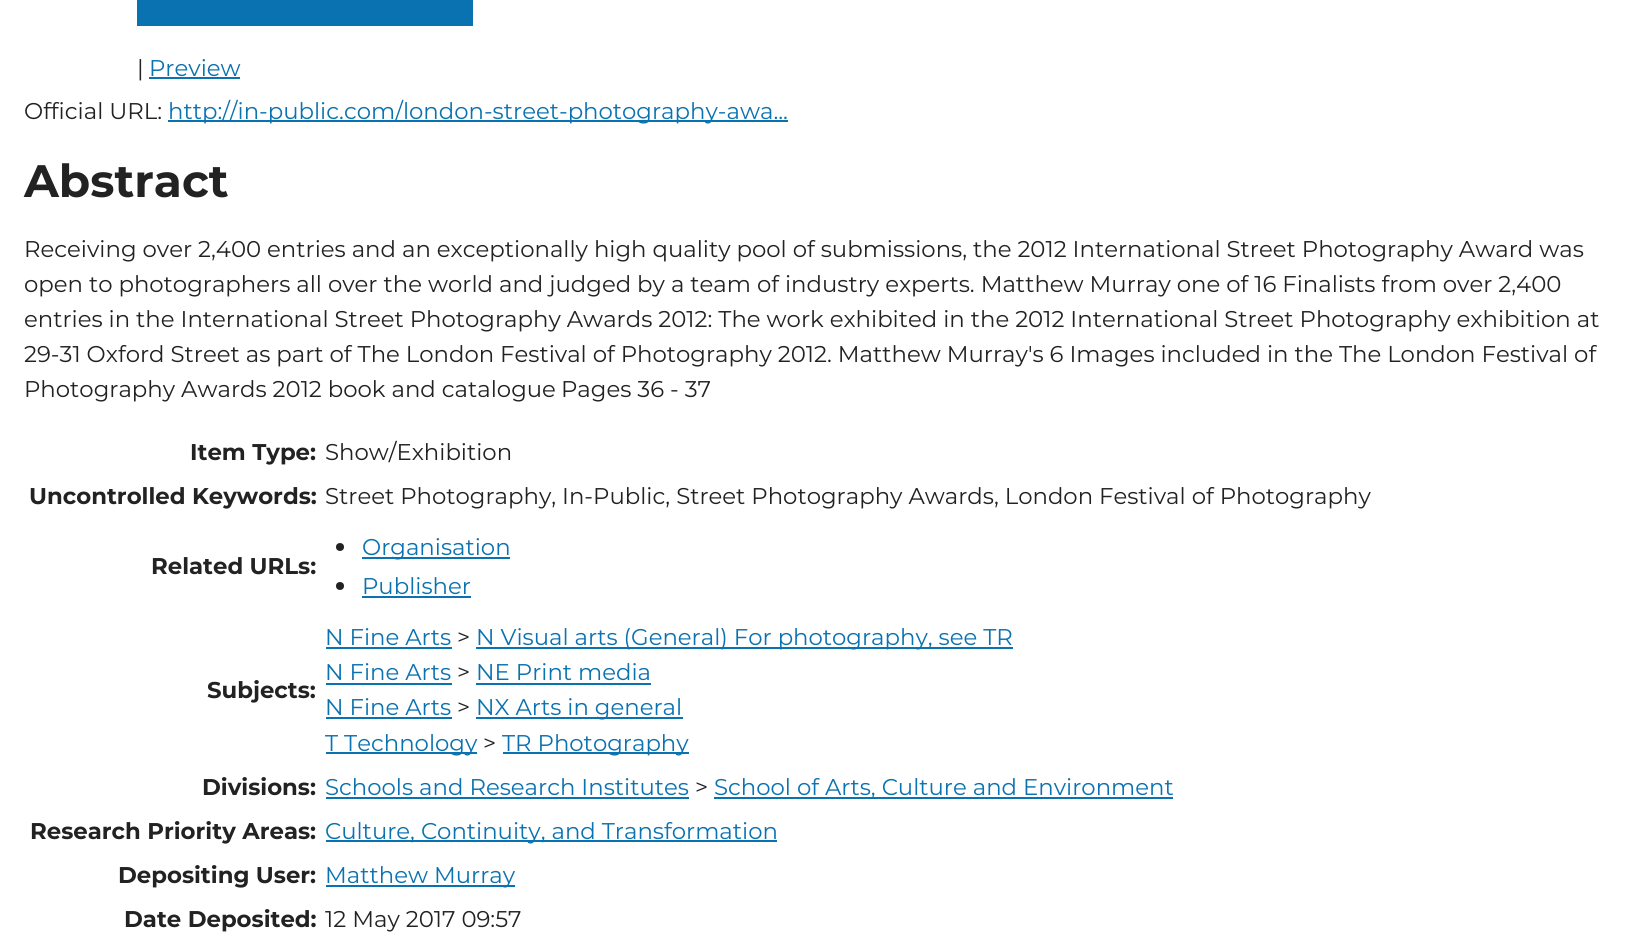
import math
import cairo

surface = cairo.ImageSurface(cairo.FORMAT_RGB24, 1639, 944)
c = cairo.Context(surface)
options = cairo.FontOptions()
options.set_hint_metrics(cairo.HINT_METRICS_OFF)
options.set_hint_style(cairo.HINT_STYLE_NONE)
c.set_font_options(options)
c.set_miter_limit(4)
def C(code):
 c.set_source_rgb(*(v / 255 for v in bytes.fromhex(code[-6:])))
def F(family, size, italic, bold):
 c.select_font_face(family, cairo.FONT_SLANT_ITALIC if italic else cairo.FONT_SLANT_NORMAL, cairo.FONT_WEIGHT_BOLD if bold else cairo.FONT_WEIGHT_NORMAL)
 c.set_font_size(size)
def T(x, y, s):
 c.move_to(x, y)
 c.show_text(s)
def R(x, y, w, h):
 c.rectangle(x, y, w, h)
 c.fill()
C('ffffff')
c.paint()
C('0b72b1')
R(137,0,336,26)
F('Montserrat',22.8,0,0)
C('222222')
T(137,76,'|')
C('0b72b1')
T(149,76,'Preview')
R(149,77,91,2)
C('222222')
T(24,119,'Official URL:')
C('0b72b1')
R(168,120,620,2)
T(168,119,'http://in-public.com/london-street-photography-awa...')
F('Montserrat',45.5,0,1)
C('222222')
T(24,197,'Abstract')
F('Montserrat',22.8,0,0)
T(24,257,'Receiving over 2,400 entries and an exceptionally high quality pool of submissions, the 2012 International Street Photography Award was')
T(24,292,'open to photographers all over the world and judged by a team of industry experts. Matthew Murray one of 16 Finalists from over 2,400')
T(24,327,'entries in the International Street Photography Awards 2012: The work exhibited in the 2012 International Street Photography exhibition at')
T(24,362,'29-31 Oxford Street as part of The London Festival of Photography 2012. Matthew Murray\'s 6 Images included in the The London Festival of')
T(24,397,'Photography Awards 2012 book and catalogue')
T(561,397,'Pages 36 - 37')
F('Montserrat',22.8,0,1)
T(190,460,'Item Type:')
F('Montserrat',22.8,0,0)
T(325,460,'Show/Exhibition')
F('Montserrat',22.8,0,1)
T(29,504,'Uncontrolled Keywords:')
F('Montserrat',22.8,0,0)
T(325,504,'Street Photography, In-Public, Street Photography Awards, London Festival of Photography')
F('Montserrat',22.8,0,1)
T(151,574,'Related URLs:')
c.new_path()
c.arc(340,547,4,0,2 * math.pi)
c.fill()
C('0b72b1')
R(362,557,148,2)
F('Montserrat',22.8,0,0)
T(362,555,'Organisation')
C('222222')
c.new_path()
c.arc(340,586,4,0,2 * math.pi)
c.fill()
C('0b72b1')
T(362,594,'Publisher')
R(362,596,109,2)
F('Montserrat',22.8,0,1)
C('222222')
T(207,698,'Subjects:')
F('Montserrat',22.8,0,0)
C('0b72b1')
T(325,645,'N Fine Arts')
R(326,647,126,2)
C('222222')
T(457,645,'>')
C('0b72b1')
R(476,647,537,2)
T(476,645,'N Visual arts (General) For photography, see TR')
T(325,680,'N Fine Arts')
R(326,683,126,2)
C('222222')
T(457,680,'>')
C('0b72b1')
T(476,680,'NE Print media')
R(476,683,175,2)
T(325,715,'N Fine Arts')
R(326,717,126,2)
C('222222')
T(457,715,'>')
C('0b72b1')
R(476,717,207,2)
T(476,715,'NX Arts in general')
R(326,752,151,2)
T(325,751,'T Technology')
C('222222')
T(483,751,'>')
C('0b72b1')
R(503,752,186,2)
T(502,751,'TR Photography')
F('Montserrat',22.8,0,1)
C('222222')
T(202,795,'Divisions:')
F('Montserrat',22.8,0,0)
C('0b72b1')
T(325,795,'Schools and Research Institutes')
R(326,797,363,2)
C('222222')
T(695,795,'>')
C('0b72b1')
R(714,797,459,2)
T(714,795,'School of Arts, Culture and Environment')
F('Montserrat',22.8,0,1)
C('222222')
T(30,839,'Research Priority Areas:')
C('0b72b1')
R(326,840,451,2)
F('Montserrat',22.8,0,0)
T(325,839,'Culture, Continuity, and Transformation')
F('Montserrat',22.8,0,1)
C('222222')
T(118,883,'Depositing User:')
C('0b72b1')
R(326,885,189,2)
F('Montserrat',22.8,0,0)
T(325,883,'Matthew Murray')
F('Montserrat',22.8,0,1)
C('222222')
T(124,927,'Date Deposited:')
F('Montserrat',22.8,0,0)
T(325,927,'12 May 2017 09:57')
surface.write_to_png('o.png')
